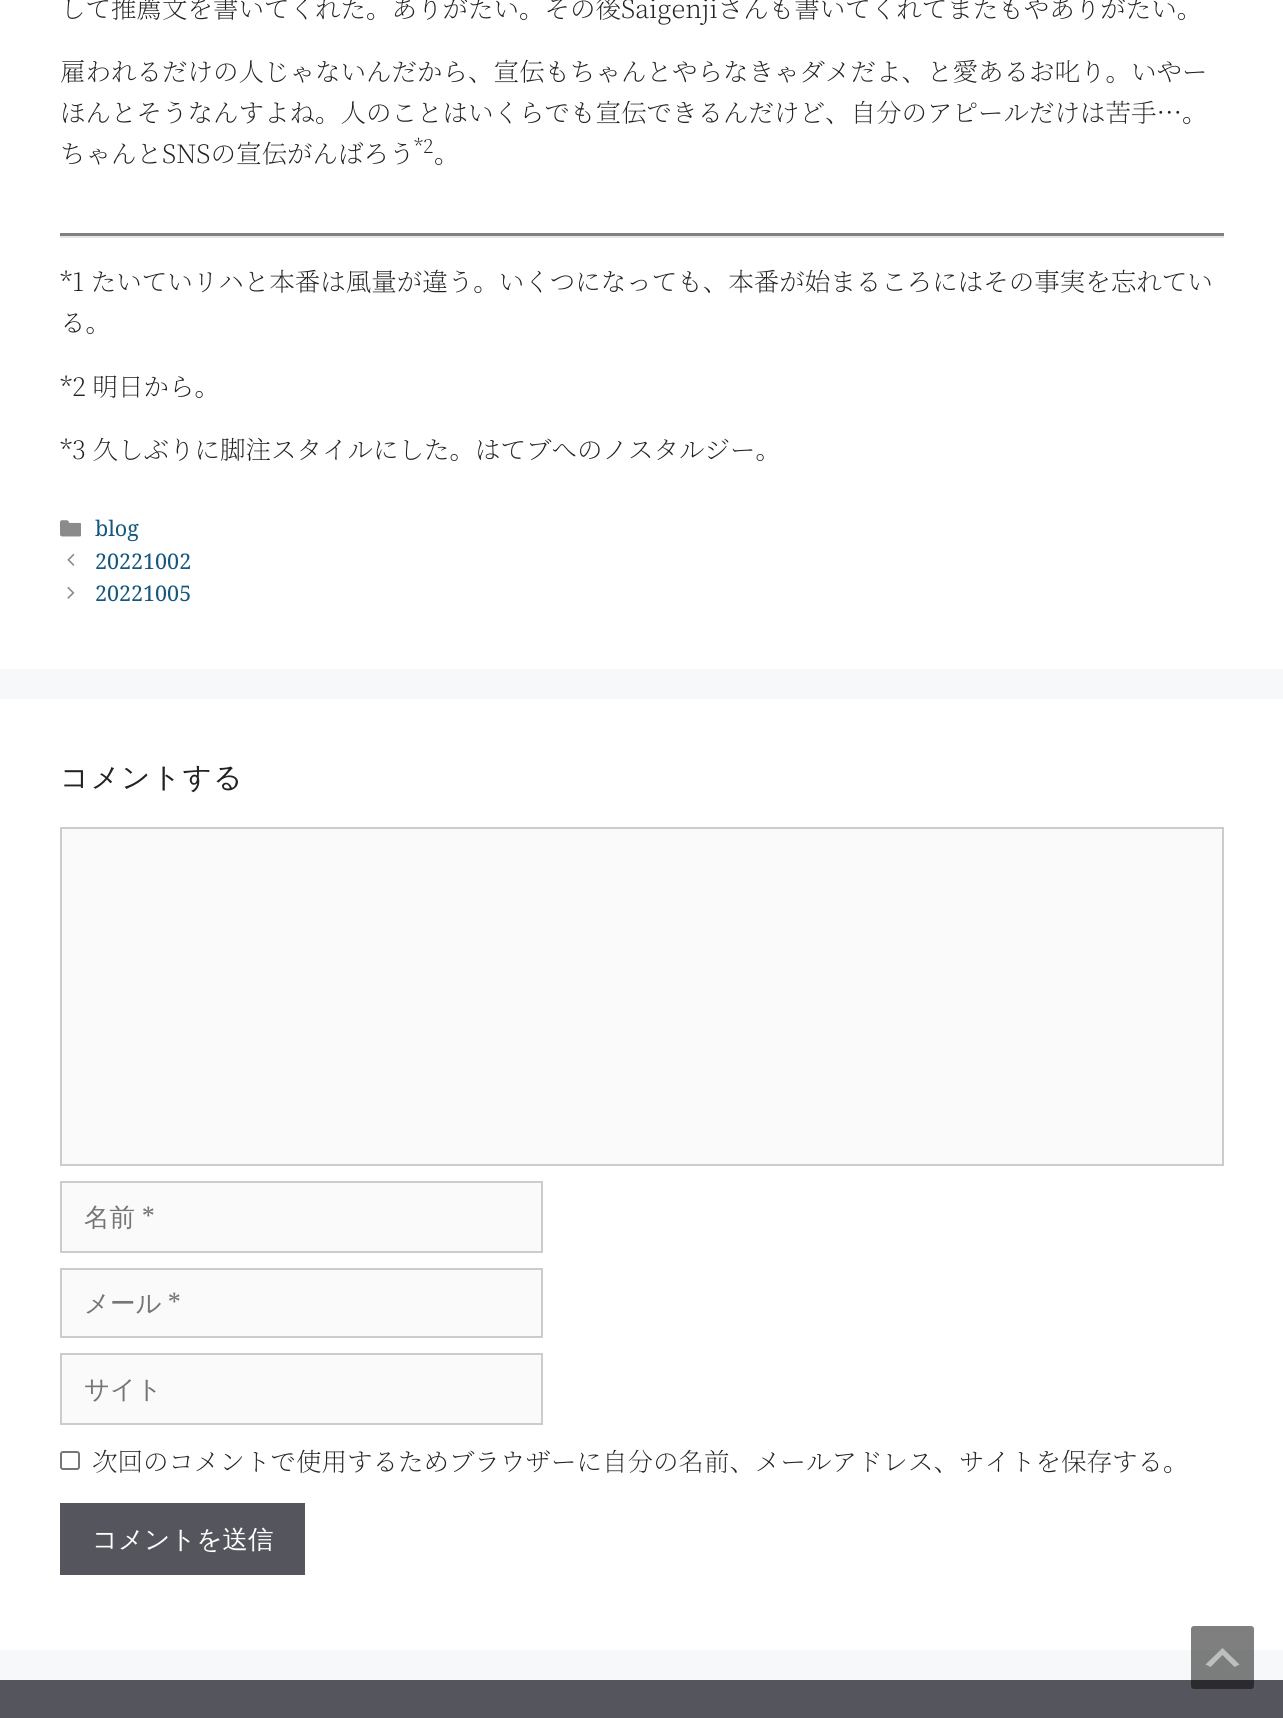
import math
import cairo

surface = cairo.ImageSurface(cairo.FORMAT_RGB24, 1283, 1718)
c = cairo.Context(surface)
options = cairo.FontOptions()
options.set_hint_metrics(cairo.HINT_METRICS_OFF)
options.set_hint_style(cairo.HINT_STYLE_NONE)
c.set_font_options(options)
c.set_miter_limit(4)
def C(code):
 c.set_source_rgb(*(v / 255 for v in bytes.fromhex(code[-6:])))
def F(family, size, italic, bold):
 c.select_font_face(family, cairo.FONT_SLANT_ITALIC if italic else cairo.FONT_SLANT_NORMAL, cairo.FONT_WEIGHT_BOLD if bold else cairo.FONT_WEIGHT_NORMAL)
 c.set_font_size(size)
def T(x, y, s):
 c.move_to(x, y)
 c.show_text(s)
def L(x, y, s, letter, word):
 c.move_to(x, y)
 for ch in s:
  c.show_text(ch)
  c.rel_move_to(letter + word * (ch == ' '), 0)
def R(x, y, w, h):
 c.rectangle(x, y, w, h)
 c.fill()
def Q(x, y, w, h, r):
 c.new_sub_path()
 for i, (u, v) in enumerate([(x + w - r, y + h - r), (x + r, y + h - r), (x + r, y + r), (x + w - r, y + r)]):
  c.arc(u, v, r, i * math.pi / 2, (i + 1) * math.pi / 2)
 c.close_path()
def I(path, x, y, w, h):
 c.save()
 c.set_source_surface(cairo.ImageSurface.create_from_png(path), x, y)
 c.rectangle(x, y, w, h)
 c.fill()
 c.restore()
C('f7f8f9')
c.paint()
C('ffffff')
R(0,0,1283,669)
F('Noto Serif JP ExtraLight',25.5,0,0)
C('222222')
T(60,18,'して推薦文を書いてくれた。ありがたい。その後Saigenjiさんも書いてくれてまたもやありがたい。')
T(60,81,'雇われるだけの人じゃないんだから、宣伝もちゃんとやらなきゃダメだよ、と愛あるお叱り。いやー')
T(60,122,'ほんとそうなんすよね。人のことはいくらでも宣伝できるんだけど、自分のアピールだけは苦手…。')
T(60,163,'ちゃんとSNSの宣伝がんばろう')
F('Noto Serif JP ExtraLight',19,0,0)
T(414,153,'*2')
F('Noto Serif JP ExtraLight',25.5,0,0)
T(434,163,'。')
C('e6e6e6')
R(60,236,1164,2)
C('808080')
R(60,233,1164,3)
C('222222')
T(60,291,'*1 たいていリハと本番は風量が違う。いくつになっても、本番が始まるころにはその事実を忘れてい')
T(60,332,'る。')
T(60,396,'*2 明日から。')
T(60,459,'*3 久しぶりに脚注スタイルにした。はてブへのノスタルジー。')
I('1.png',60,520,21,17)
F('Noto Serif',21.5,0,0)
C('15567f')
T(95,536,'blog')
I('2.png',67,553,8,13)
T(95,569,'20221002')
I('3.png',67,586,8,13)
T(95,601,'20221005')
C('ffffff')
R(0,699,1283,951)
F('WenQuanYi Zen Hei Medium',28.5,0,0)
C('222222')
L(60,787,'コメントする',1.5,0)
C('fafafa')
c.rectangle(61,828,1162,337)
c.fill_preserve()
C('cccccc')
c.stroke()
C('fafafa')
c.rectangle(61,1182,481,70)
c.fill_preserve()
C('cccccc')
c.stroke()
F('WenQuanYi Zen Hei Medium',25.5,0,0)
C('757575')
T(84,1226,'名前')
F('Noto Serif',25.5,0,0)
T(142,1226,'*')
C('fafafa')
c.rectangle(61,1269,481,68)
c.fill_preserve()
C('cccccc')
c.stroke()
F('WenQuanYi Zen Hei Medium',25.5,0,0)
C('757575')
T(84,1312,'メール')
F('Noto Serif',25.5,0,0)
T(168,1312,'*')
C('fafafa')
c.rectangle(61,1354,481,70)
c.fill_preserve()
C('cccccc')
c.stroke()
F('WenQuanYi Zen Hei Medium',25.5,0,0)
C('757575')
T(84,1398,'サイト')
Q(61,1452,18,17,2)
C('767676')
c.stroke()
F('Noto Serif JP ExtraLight',25.5,0,0)
C('222222')
T(92,1471,'次回のコメントで使用するためブラウザーに自分の名前、メールアドレス、サイトを保存する。')
C('55555e')
R(60,1503,245,72)
F('WenQuanYi Zen Hei Medium',25.5,0,0)
C('ffffff')
T(92,1548,'コメントを送信')
C('55555e')
R(0,1680,1283,38)
c.set_source_rgba(0,0,0,0.5)
Q(1191,1626,63,63,3)
c.fill()
c.set_source_rgba(1,1,1,0.5)
c.new_path()
c.move_to(1234.5,1667)
c.line_to(1222.5,1655)
c.line_to(1210.5,1667)
c.line_to(1205.5,1664.5)
c.line_to(1222.5,1648)
c.line_to(1239.5,1664.5)
c.close_path()
c.fill()
surface.write_to_png('o.png')
